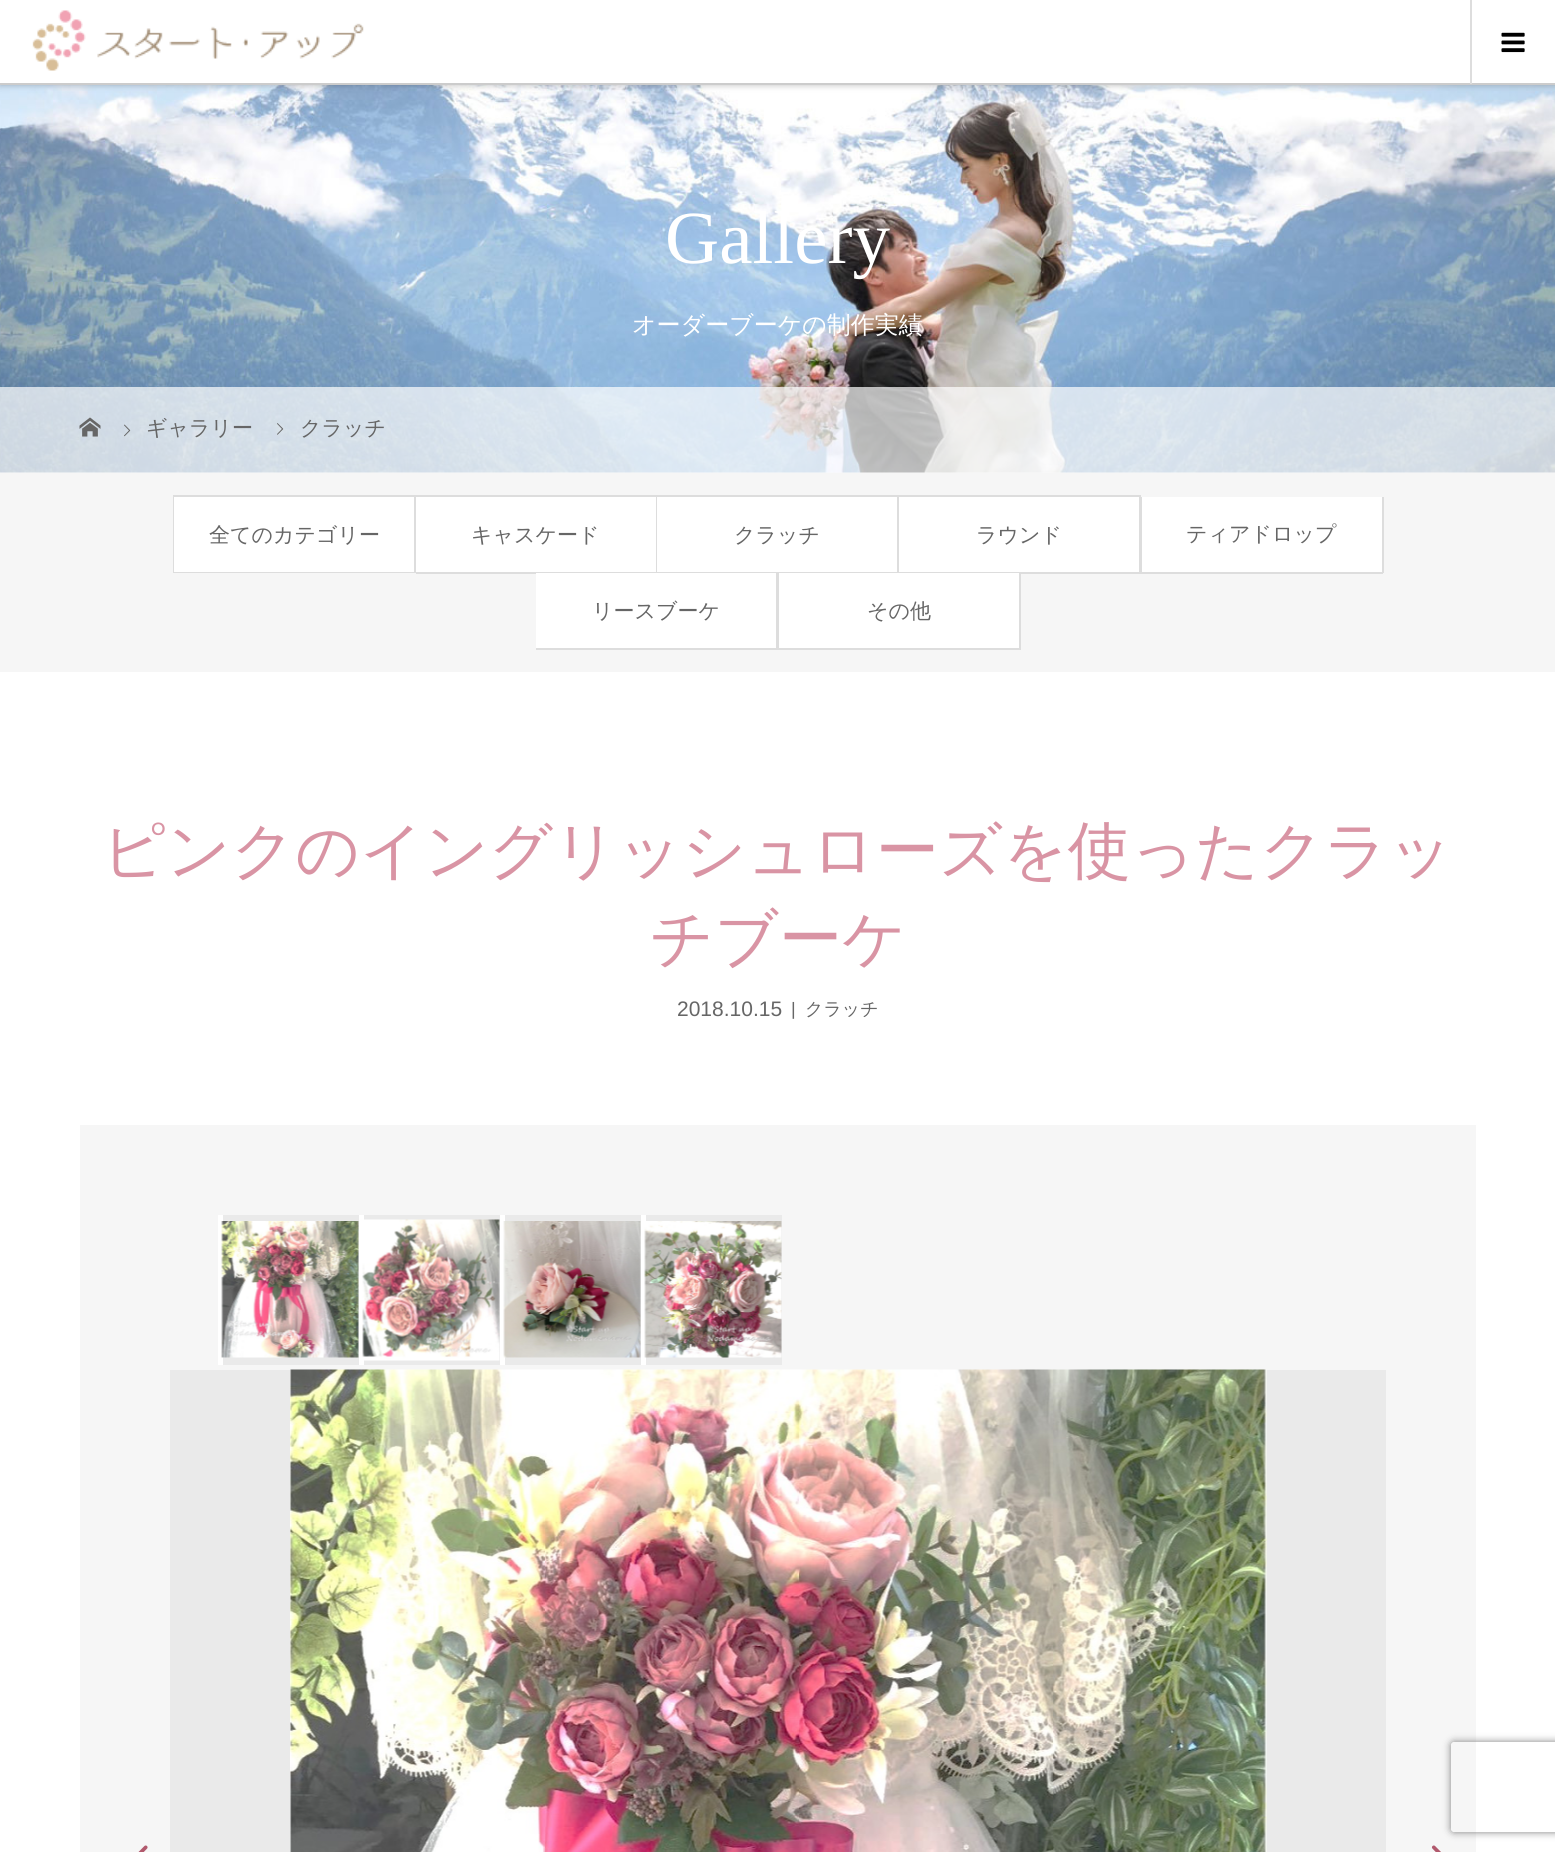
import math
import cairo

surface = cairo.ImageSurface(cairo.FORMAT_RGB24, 1555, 1852)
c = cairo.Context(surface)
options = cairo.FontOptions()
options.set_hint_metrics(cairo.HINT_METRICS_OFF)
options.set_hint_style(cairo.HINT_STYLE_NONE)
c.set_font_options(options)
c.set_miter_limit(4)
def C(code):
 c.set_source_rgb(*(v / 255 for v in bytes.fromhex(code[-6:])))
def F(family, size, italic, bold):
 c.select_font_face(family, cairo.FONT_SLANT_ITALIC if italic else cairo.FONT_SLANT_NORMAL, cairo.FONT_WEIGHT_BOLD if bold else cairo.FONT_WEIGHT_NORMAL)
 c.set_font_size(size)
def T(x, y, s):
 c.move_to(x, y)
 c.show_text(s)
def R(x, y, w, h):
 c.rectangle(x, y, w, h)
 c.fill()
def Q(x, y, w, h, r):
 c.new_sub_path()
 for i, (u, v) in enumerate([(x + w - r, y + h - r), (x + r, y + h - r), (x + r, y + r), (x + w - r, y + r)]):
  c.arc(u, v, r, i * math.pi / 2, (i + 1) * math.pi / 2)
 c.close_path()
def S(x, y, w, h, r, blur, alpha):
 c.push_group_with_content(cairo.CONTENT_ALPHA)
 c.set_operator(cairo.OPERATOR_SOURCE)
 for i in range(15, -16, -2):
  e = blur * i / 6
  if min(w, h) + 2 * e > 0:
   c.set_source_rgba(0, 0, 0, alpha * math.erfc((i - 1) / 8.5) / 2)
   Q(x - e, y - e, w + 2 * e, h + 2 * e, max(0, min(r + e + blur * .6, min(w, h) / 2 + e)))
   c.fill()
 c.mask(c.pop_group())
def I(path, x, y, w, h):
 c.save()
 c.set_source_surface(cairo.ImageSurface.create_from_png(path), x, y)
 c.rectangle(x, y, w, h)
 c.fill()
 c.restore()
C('ffffff')
c.paint()
C('eaeaea')
R(0,472,1555,1)
I('3.png',0,85,1555,388)
C('000000')
S(0,2,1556,84,0,3,.2)
C('ffffff')
R(0,0,1555,83)
C('cccccc')
R(0,83,1555,2)
I('1.png',32,10,332,61)
C('dddddd')
R(1470,0,2,84)
I('2.png',1501,32,24,21)
F('Liberation Serif',75,0,0)
C('ffffff')
T(665,263,'Gallery')
F('WenQuanYi Zen Hei Medium',24,0,0)
T(632,333,'オーダーブーケの制作実績')
c.set_source_rgba(1,1,1,0.7)
R(0,387,1555,86)
I('4.png',79,417,22,20)
I('5.png',124,424,7,13)
F('WenQuanYi Zen Hei Medium',21,0,0)
C('666666')
T(146,435,'ギャラリー')
I('6.png',277,423,7,12)
T(300,435,'クラッチ')
C('f6f6f6')
R(0,473,1555,199)
c.rectangle(174,496,241,76)
C('dddddd')
c.stroke()
C('ffffff')
R(174,497,240,75)
C('666666')
T(209,542,'全てのカテゴリー')
C('dddddd')
R(416,495,724,2)
R(656,495,1,78)
R(416,572,241,2)
C('ffffff')
R(416,497,240,75)
C('666666')
T(471,542,'キャスケード')
C('dddddd')
R(897,495,2,78)
R(657,572,242,1)
C('ffffff')
R(657,497,240,75)
C('666666')
T(734,542,'クラッチ')
C('dddddd')
R(1139,495,2,78)
R(899,572,241,2)
C('ffffff')
R(899,497,240,75)
C('666666')
T(976,542,'ラウンド')
C('dddddd')
R(1382,497,2,76)
R(1140,572,243,2)
R(1141,497,1,76)
C('ffffff')
R(1142,497,240,75)
C('666666')
T(1186,541,'ティアドロップ')
C('dddddd')
R(776,573,1,77)
R(536,648,241,2)
C('ffffff')
R(536,573,240,75)
C('666666')
T(592,618,'リースブーケ')
C('dddddd')
R(1019,573,2,77)
R(777,648,243,2)
R(777,573,2,77)
C('ffffff')
R(779,573,240,75)
C('666666')
T(867,618,'その他')
F('WenQuanYi Zen Hei Medium',63,0,0)
C('d994a4')
T(102,872,'ピンクのイングリッシュローズを使ったクラッ')
T(650,960,'チブーケ')
F('Liberation Sans',21,0,0)
C('666666')
T(677,1016,'2018.10.15')
F('Liberation Sans',18,0,0)
T(791,1015,'|')
F('WenQuanYi Zen Hei Medium',18,0,0)
T(805,1015,'クラッチ')
C('f6f6f6')
R(80,1125,1396,727)
C('eaeaea')
R(223,1215,136,150)
C('ffffff')
R(218,1215,5,150)
I('7.png',221,1221,138,137)
C('eaeaea')
R(364,1215,136,150)
C('ffffff')
R(359,1215,5,150)
I('8.png',362,1219,138,142)
C('eaeaea')
R(505,1215,136,150)
C('ffffff')
R(500,1215,5,150)
I('9.png',503,1221,138,137)
C('eaeaea')
R(646,1215,136,150)
C('ffffff')
R(641,1215,5,150)
I('10.png',644,1221,138,137)
I('11.png',138,1845,10,7)
C('eaeaea')
R(170,1370,1216,482)
I('12.png',290,1369,977,483)
I('13.png',1431,1845,10,7)
c.save()
c.set_fill_rule(cairo.FILL_RULE_EVEN_ODD)
c.new_path()
c.move_to(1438,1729)
c.line_to(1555,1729)
c.line_to(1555,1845)
c.line_to(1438,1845)
c.close_path()
c.move_to(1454,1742)
c.line_to(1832,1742)
c.curve_to(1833.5,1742,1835,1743.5,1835,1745)
c.line_to(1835,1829)
c.curve_to(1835,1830.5,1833.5,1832,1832,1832)
c.line_to(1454,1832)
c.curve_to(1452.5,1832,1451,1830.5,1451,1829)
c.line_to(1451,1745)
c.curve_to(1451,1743.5,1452.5,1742,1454,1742)
c.close_path()
c.clip()
C('808080')
S(1451,1742,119,90,3,4,1)
c.restore()
surface.write_to_png('o.png')
